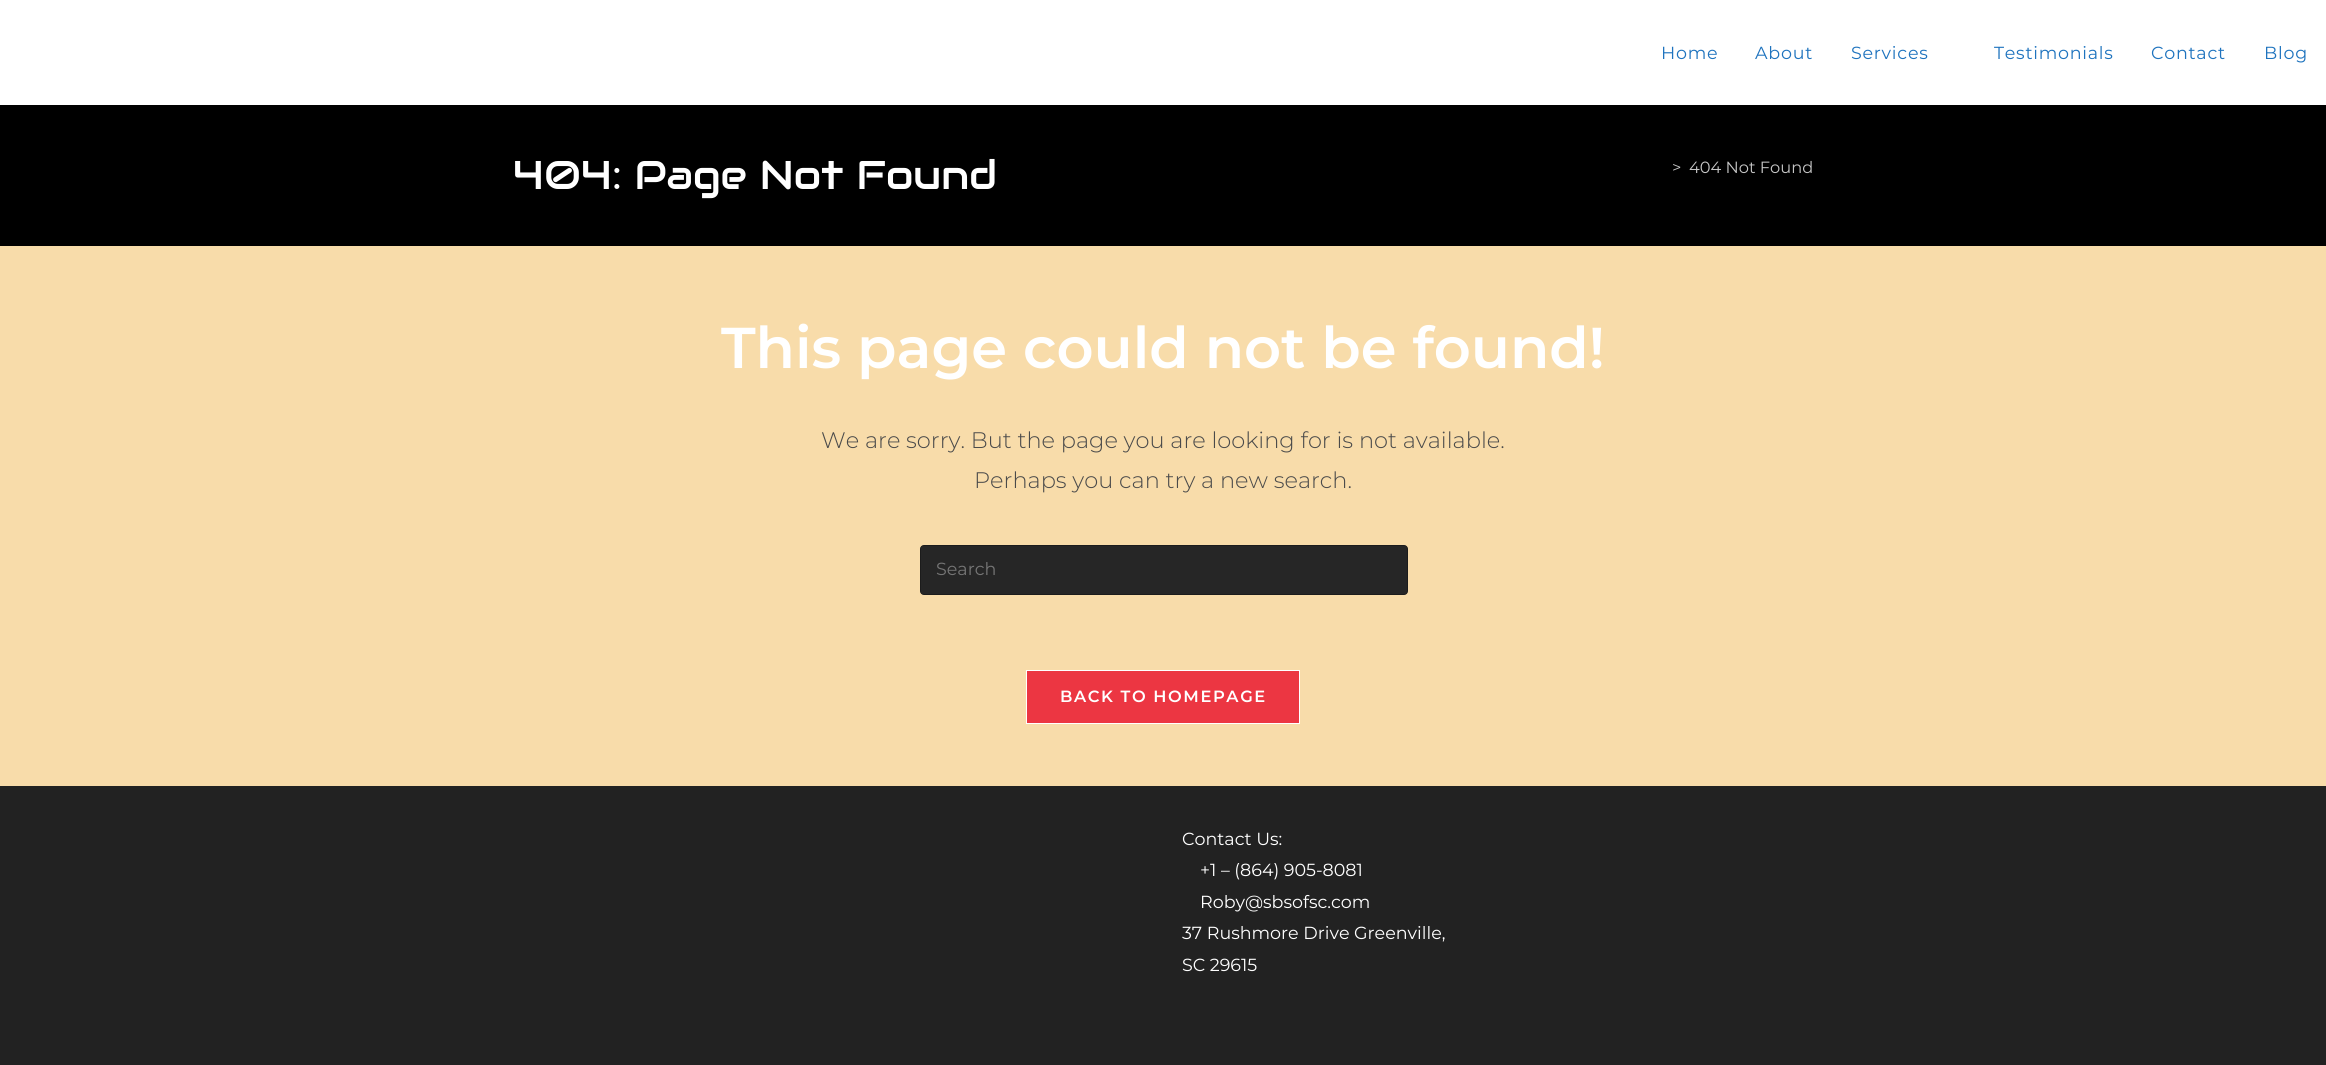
import math
import cairo

surface = cairo.ImageSurface(cairo.FORMAT_RGB24, 2326, 1065)
c = cairo.Context(surface)
options = cairo.FontOptions()
options.set_hint_metrics(cairo.HINT_METRICS_OFF)
options.set_hint_style(cairo.HINT_STYLE_NONE)
c.set_font_options(options)
c.set_miter_limit(4)
def C(code):
 c.set_source_rgb(*(v / 255 for v in bytes.fromhex(code[-6:])))
def F(family, size, italic, bold):
 c.select_font_face(family, cairo.FONT_SLANT_ITALIC if italic else cairo.FONT_SLANT_NORMAL, cairo.FONT_WEIGHT_BOLD if bold else cairo.FONT_WEIGHT_NORMAL)
 c.set_font_size(size)
def T(x, y, s):
 c.move_to(x, y)
 c.show_text(s)
def L(x, y, s, letter, word):
 c.move_to(x, y)
 for ch in s:
  c.show_text(ch)
  c.rel_move_to(letter + word * (ch == ' '), 0)
def R(x, y, w, h):
 c.rectangle(x, y, w, h)
 c.fill()
def Q(x, y, w, h, r):
 c.new_sub_path()
 for i, (u, v) in enumerate([(x + w - r, y + h - r), (x + r, y + h - r), (x + r, y + r), (x + w - r, y + r)]):
  c.arc(u, v, r, i * math.pi / 2, (i + 1) * math.pi / 2)
 c.close_path()
C('f8dcaa')
c.paint()
C('ffffff')
R(0,0,2326,105)
F('Montserrat',17.5,0,0)
C('1e73be')
L(1661,59,'Home',.75,0)
L(1755,59,'About',.75,0)
L(1851,59,'Services',.75,0)
L(1994,59,'Testimonials',.75,0)
L(2151,59,'Contact',.75,0)
L(2264,59,'Blog',.75,0)
C('000000')
R(0,105,2326,141)
F('Audiowide',40,0,0)
C('ffffff')
T(513,189,'404: Page Not Found')
F('Montserrat',16.25,0,0)
C('c6c6c6')
T(1672,173,'>')
T(1689,173,'404 Not Found')
F('Montserrat SemiBold',57.5,0,0)
C('ffffff')
T(721,368,'This page could not be found!')
F('Montserrat Light',22.5,0,0)
C('4a4a4a')
T(821,448,'We are sorry. But the page you are looking for is not available.')
T(974,488,'Perhaps you can try a new search.')
C('262626')
Q(920.5,545.5,487,49,3.5)
c.fill_preserve()
C('1c1c1c')
c.set_line_width(1)
c.stroke()
F('Montserrat',17.5,0,0)
C('757575')
T(936,575,'Search')
C('ec3642')
c.rectangle(1026.5,670.5,273,53)
c.fill_preserve()
C('ffffff')
c.stroke()
F('Montserrat SemiBold',16.25,0,0)
L(1060,702,'BACK TO HOMEPAGE',1.6,0)
C('222222')
R(0,786,2326,279)
F('Montserrat',17.5,0,0)
C('ffffff')
T(1182,845,'Contact Us:')
T(1200,876,'+1 – (864) 905-8081')
T(1200,908,'Roby@sbsofsc.com')
T(1182,939,'37 Rushmore Drive Greenville,')
T(1182,971,'SC 29615')
surface.write_to_png('o.png')
